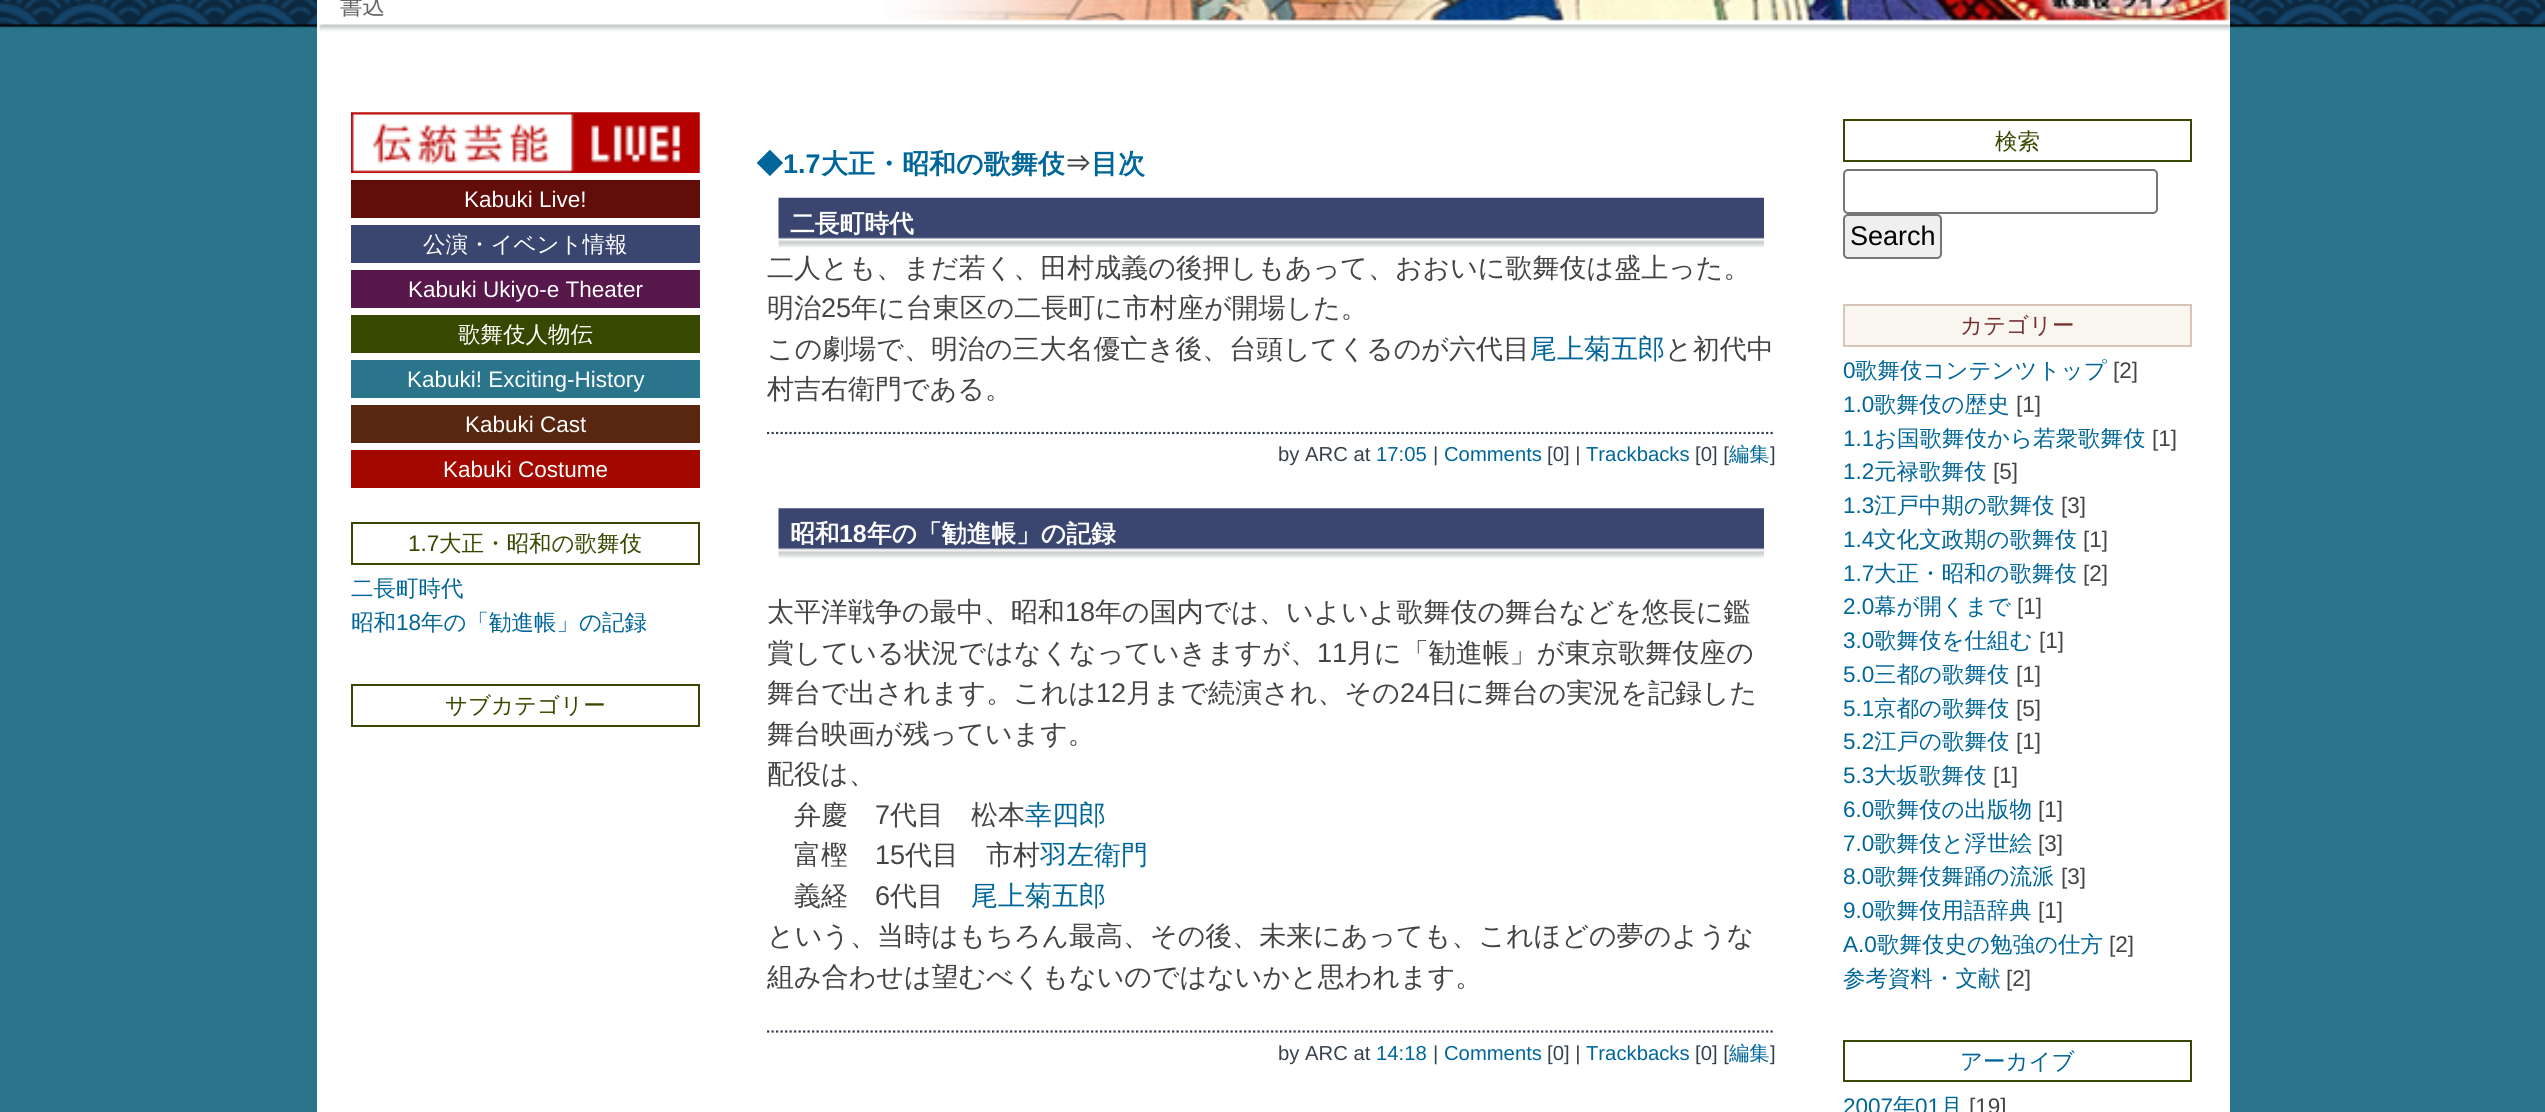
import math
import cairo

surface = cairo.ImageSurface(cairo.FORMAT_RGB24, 2545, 1112)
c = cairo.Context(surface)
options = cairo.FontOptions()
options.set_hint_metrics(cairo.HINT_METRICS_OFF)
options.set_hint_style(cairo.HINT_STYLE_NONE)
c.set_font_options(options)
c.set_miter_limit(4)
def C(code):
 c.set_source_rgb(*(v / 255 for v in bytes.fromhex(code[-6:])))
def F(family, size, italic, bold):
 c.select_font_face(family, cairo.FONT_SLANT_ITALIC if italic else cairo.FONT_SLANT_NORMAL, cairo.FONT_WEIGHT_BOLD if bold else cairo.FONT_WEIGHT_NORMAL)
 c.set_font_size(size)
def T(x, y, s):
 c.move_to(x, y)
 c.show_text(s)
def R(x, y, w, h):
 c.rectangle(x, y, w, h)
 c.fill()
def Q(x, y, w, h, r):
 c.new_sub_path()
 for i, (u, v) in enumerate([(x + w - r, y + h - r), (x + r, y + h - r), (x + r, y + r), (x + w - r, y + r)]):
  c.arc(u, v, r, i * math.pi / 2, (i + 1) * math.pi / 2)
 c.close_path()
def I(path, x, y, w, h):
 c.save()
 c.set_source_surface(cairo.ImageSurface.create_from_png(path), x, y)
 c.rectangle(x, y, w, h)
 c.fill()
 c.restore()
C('2a758c')
c.paint()
I('1.png',0,0,2545,28)
C('ffffff')
R(317,0,1913,1112)
I('2.png',317,0,1913,32)
F('WenQuanYi Zen Hei Medium',22.5,0,0)
C('666666')
T(340,14,'書込')
I('3.png',351,112,349,61)
C('610e0a')
R(351,180,349,38)
F('Liberation Sans',22.5,0,0)
C('ffffff')
T(464,207,'Kabuki Live!')
C('3a4670')
R(351,225,349,38)
F('WenQuanYi Zen Hei Medium',22.5,0,0)
C('ffffff')
T(423,252,'公演・イベント情報')
C('58184c')
R(351,270,349,38)
F('Liberation Sans',22.5,0,0)
C('ffffff')
T(408,297,'Kabuki Ukiyo-e Theater')
C('374900')
R(351,315,349,38)
F('WenQuanYi Zen Hei Medium',22.5,0,0)
C('ffffff')
T(458,342,'歌舞伎人物伝')
C('2a758c')
R(351,360,349,38)
F('Liberation Sans',22.5,0,0)
C('ffffff')
T(407,387,'Kabuki! Exciting-History')
C('592710')
R(351,405,349,38)
C('ffffff')
T(465,432,'Kabuki Cast')
C('a40900')
R(351,450,349,38)
C('ffffff')
T(443,477,'Kabuki Costume')
c.rectangle(352,523,347,41)
C('374900')
c.stroke()
T(408,551,'1.7')
F('WenQuanYi Zen Hei Medium',22.5,0,0)
T(439,551,'大正・昭和の歌舞伎')
C('006699')
T(351,596,'二長町時代')
T(351,630,'昭和')
F('Liberation Sans',22.5,0,0)
T(396,630,'18')
F('WenQuanYi Zen Hei Medium',22.5,0,0)
T(421,630,'年の「勧進帳」の記録')
c.rectangle(352,685,347,41)
C('374900')
c.stroke()
T(445,713,'サブカテゴリー')
F('WenQuanYi Zen Hei',27,0,1)
C('006699')
T(756,173,'◆')
F('Liberation Sans',27,0,1)
T(783,173,'1.7')
F('WenQuanYi Zen Hei',27,0,1)
T(821,173,'大正・昭和の歌舞伎')
C('444444')
T(1064,173,'⇒')
C('006699')
T(1091,173,'目次')
I('4.png',778,197,986,51)
F('WenQuanYi Zen Hei',24.75,0,1)
C('ffffff')
T(790,232,'二長町時代')
F('WenQuanYi Zen Hei Medium',27,0,0)
C('444444')
T(767,277,'二人とも、まだ若く、田村成義の後押しもあって、おおいに歌舞伎は盛上った。')
T(767,317,'明治')
F('Liberation Sans',27,0,0)
T(821,317,'25')
F('WenQuanYi Zen Hei Medium',27,0,0)
T(851,317,'年に台東区の二長町に市村座が開場した。')
T(767,358,'この劇場で、明治の三大名優亡き後、台頭してくるのが六代目')
C('006699')
T(1530,358,'尾上菊五郎')
C('444444')
T(1665,358,'と初代中')
T(767,398,'村吉右衛門である。')
c.new_path()
c.move_to(767,433)
c.line_to(1775,433)
C('36414d')
c.set_line_width(2.2)
c.set_dash([2.25,2.25])
c.stroke()
F('Liberation Sans',20.25,0,0)
T(1278,461,'by ARC at')
C('006699')
T(1376,461,'17:05')
C('36414d')
T(1433,461,'|')
C('006699')
T(1444,461,'Comments')
C('36414d')
T(1547,461,'[0] |')
C('006699')
T(1586,461,'Trackbacks')
C('36414d')
T(1695,461,'[0] [')
F('WenQuanYi Zen Hei Medium',20.25,0,0)
C('006699')
T(1729,461,'編集')
F('Liberation Sans',20.25,0,0)
C('36414d')
T(1770,461,']')
I('5.png',778,508,986,50)
F('WenQuanYi Zen Hei',24.75,0,1)
C('ffffff')
T(790,542,'昭和')
F('Liberation Sans',24.75,0,1)
T(839,542,'18')
F('WenQuanYi Zen Hei',24.75,0,1)
T(867,542,'年の「勧進帳」の記録')
F('WenQuanYi Zen Hei Medium',27,0,0)
C('444444')
T(767,621,'太平洋戦争の最中、昭和')
F('Liberation Sans',27,0,0)
T(1065,621,'18')
F('WenQuanYi Zen Hei Medium',27,0,0)
T(1095,621,'年の国内では、いよいよ歌舞伎の舞台などを悠長に鑑')
T(767,662,'賞している状況ではなくなっていきますが、')
F('Liberation Sans',27,0,0)
T(1317,662,'11')
F('WenQuanYi Zen Hei Medium',27,0,0)
T(1347,662,'月に「勧進帳」が東京歌舞伎座の')
T(767,702,'舞台で出されます。これは')
F('Liberation Sans',27,0,0)
T(1096,702,'12')
F('WenQuanYi Zen Hei Medium',27,0,0)
T(1126,702,'月まで続演され、その')
F('Liberation Sans',27,0,0)
T(1400,702,'24')
F('WenQuanYi Zen Hei Medium',27,0,0)
T(1430,702,'日に舞台の実況を記録した')
T(767,743,'舞台映画が残っています。')
T(767,783,'配役は、')
T(794,824,'弁慶')
F('Liberation Sans',27,0,0)
T(875,824,'7')
F('WenQuanYi Zen Hei Medium',27,0,0)
T(890,824,'代目　松本')
C('006699')
T(1025,824,'幸四郎')
C('444444')
T(794,864,'富樫')
F('Liberation Sans',27,0,0)
T(875,864,'15')
F('WenQuanYi Zen Hei Medium',27,0,0)
T(905,864,'代目　市村')
C('006699')
T(1040,864,'羽左衛門')
C('444444')
T(794,905,'義経')
F('Liberation Sans',27,0,0)
T(875,905,'6')
F('WenQuanYi Zen Hei Medium',27,0,0)
T(890,905,'代目')
C('006699')
T(971,905,'尾上菊五郎')
C('444444')
T(767,945,'という、当時はもちろん最高、その後、未来にあっても、これほどの夢のような')
T(767,986,'組み合わせは望むべくもないのではないかと思われます。')
c.new_path()
c.move_to(767,1031.5)
c.line_to(1775,1031.5)
C('36414d')
c.stroke()
F('Liberation Sans',20.25,0,0)
T(1278,1060,'by ARC at')
C('006699')
T(1376,1060,'14:18')
C('36414d')
T(1433,1060,'|')
C('006699')
T(1444,1060,'Comments')
C('36414d')
T(1547,1060,'[0] |')
C('006699')
T(1586,1060,'Trackbacks')
C('36414d')
T(1695,1060,'[0] [')
F('WenQuanYi Zen Hei Medium',20.25,0,0)
C('006699')
T(1729,1060,'編集')
F('Liberation Sans',20.25,0,0)
C('36414d')
T(1770,1060,']')
c.rectangle(1844,120,347,41)
C('374900')
c.set_line_width(2)
c.set_dash([])
c.stroke()
F('WenQuanYi Zen Hei Medium',22.5,0,0)
T(1995,149,'検索')
Q(1844,170,313,43,4)
C('767676')
c.stroke()
C('efefef')
Q(1844,215,97,43,4)
c.fill_preserve()
C('767676')
c.stroke()
F('Liberation Sans',27,0,0)
C('000000')
T(1850,245,'Search')
C('f9f6ef')
c.rectangle(1844,305,347,41)
c.fill_preserve()
C('d9c5b8')
c.stroke()
F('WenQuanYi Zen Hei Medium',22.5,0,0)
C('713030')
T(1960,333,'カテゴリー')
F('Liberation Sans',22.5,0,0)
C('006699')
T(1843,378,'0')
F('WenQuanYi Zen Hei Medium',22.5,0,0)
T(1855,378,'歌舞伎コンテンツトップ')
F('Liberation Sans',22.5,0,0)
C('444444')
T(2113,378,'[2]')
C('006699')
T(1843,412,'1.0')
F('WenQuanYi Zen Hei Medium',22.5,0,0)
T(1874,412,'歌舞伎の歴史')
F('Liberation Sans',22.5,0,0)
C('444444')
T(2016,412,'[1]')
C('006699')
T(1843,446,'1.1')
F('WenQuanYi Zen Hei Medium',22.5,0,0)
T(1874,446,'お国歌舞伎から若衆歌舞伎')
F('Liberation Sans',22.5,0,0)
C('444444')
T(2152,446,'[1]')
C('006699')
T(1843,479,'1.2')
F('WenQuanYi Zen Hei Medium',22.5,0,0)
T(1874,479,'元禄歌舞伎')
F('Liberation Sans',22.5,0,0)
C('444444')
T(1993,479,'[5]')
C('006699')
T(1843,513,'1.3')
F('WenQuanYi Zen Hei Medium',22.5,0,0)
T(1874,513,'江戸中期の歌舞伎')
F('Liberation Sans',22.5,0,0)
C('444444')
T(2061,513,'[3]')
C('006699')
T(1843,547,'1.4')
F('WenQuanYi Zen Hei Medium',22.5,0,0)
T(1874,547,'文化文政期の歌舞伎')
F('Liberation Sans',22.5,0,0)
C('444444')
T(2083,547,'[1]')
C('006699')
T(1843,581,'1.7')
F('WenQuanYi Zen Hei Medium',22.5,0,0)
T(1874,581,'大正・昭和の歌舞伎')
F('Liberation Sans',22.5,0,0)
C('444444')
T(2083,581,'[2]')
C('006699')
T(1843,614,'2.0')
F('WenQuanYi Zen Hei Medium',22.5,0,0)
T(1874,614,'幕が開くまで')
F('Liberation Sans',22.5,0,0)
C('444444')
T(2017,614,'[1]')
C('006699')
T(1843,648,'3.0')
F('WenQuanYi Zen Hei Medium',22.5,0,0)
T(1874,648,'歌舞伎を仕組む')
F('Liberation Sans',22.5,0,0)
C('444444')
T(2039,648,'[1]')
C('006699')
T(1843,682,'5.0')
F('WenQuanYi Zen Hei Medium',22.5,0,0)
T(1874,682,'三都の歌舞伎')
F('Liberation Sans',22.5,0,0)
C('444444')
T(2016,682,'[1]')
C('006699')
T(1843,716,'5.1')
F('WenQuanYi Zen Hei Medium',22.5,0,0)
T(1874,716,'京都の歌舞伎')
F('Liberation Sans',22.5,0,0)
C('444444')
T(2016,716,'[5]')
C('006699')
T(1843,749,'5.2')
F('WenQuanYi Zen Hei Medium',22.5,0,0)
T(1874,749,'江戸の歌舞伎')
F('Liberation Sans',22.5,0,0)
C('444444')
T(2016,749,'[1]')
C('006699')
T(1843,783,'5.3')
F('WenQuanYi Zen Hei Medium',22.5,0,0)
T(1874,783,'大坂歌舞伎')
F('Liberation Sans',22.5,0,0)
C('444444')
T(1993,783,'[1]')
C('006699')
T(1843,817,'6.0')
F('WenQuanYi Zen Hei Medium',22.5,0,0)
T(1874,817,'歌舞伎の出版物')
F('Liberation Sans',22.5,0,0)
C('444444')
T(2038,817,'[1]')
C('006699')
T(1843,851,'7.0')
F('WenQuanYi Zen Hei Medium',22.5,0,0)
T(1874,851,'歌舞伎と浮世絵')
F('Liberation Sans',22.5,0,0)
C('444444')
T(2038,851,'[3]')
C('006699')
T(1843,884,'8.0')
F('WenQuanYi Zen Hei Medium',22.5,0,0)
T(1874,884,'歌舞伎舞踊の流派')
F('Liberation Sans',22.5,0,0)
C('444444')
T(2061,884,'[3]')
C('006699')
T(1843,918,'9.0')
F('WenQuanYi Zen Hei Medium',22.5,0,0)
T(1874,918,'歌舞伎用語辞典')
F('Liberation Sans',22.5,0,0)
C('444444')
T(2038,918,'[1]')
C('006699')
T(1843,952,'A.0')
F('WenQuanYi Zen Hei Medium',22.5,0,0)
T(1877,952,'歌舞伎史の勉強の仕方')
F('Liberation Sans',22.5,0,0)
C('444444')
T(2109,952,'[2]')
F('WenQuanYi Zen Hei Medium',22.5,0,0)
C('006699')
T(1843,986,'参考資料・文献')
F('Liberation Sans',22.5,0,0)
C('444444')
T(2006,986,'[2]')
c.rectangle(1844,1041,347,40)
C('374900')
c.stroke()
F('WenQuanYi Zen Hei Medium',22.5,0,0)
C('006699')
T(1960,1069,'アーカイブ')
F('Liberation Sans',22.5,0,0)
T(1843,1114,'2007')
F('WenQuanYi Zen Hei Medium',22.5,0,0)
T(1893,1114,'年')
F('Liberation Sans',22.5,0,0)
T(1915,1114,'01')
F('WenQuanYi Zen Hei Medium',22.5,0,0)
T(1940,1114,'月')
F('Liberation Sans',22.5,0,0)
C('444444')
T(1969,1114,'[19]')
surface.write_to_png('o.png')
